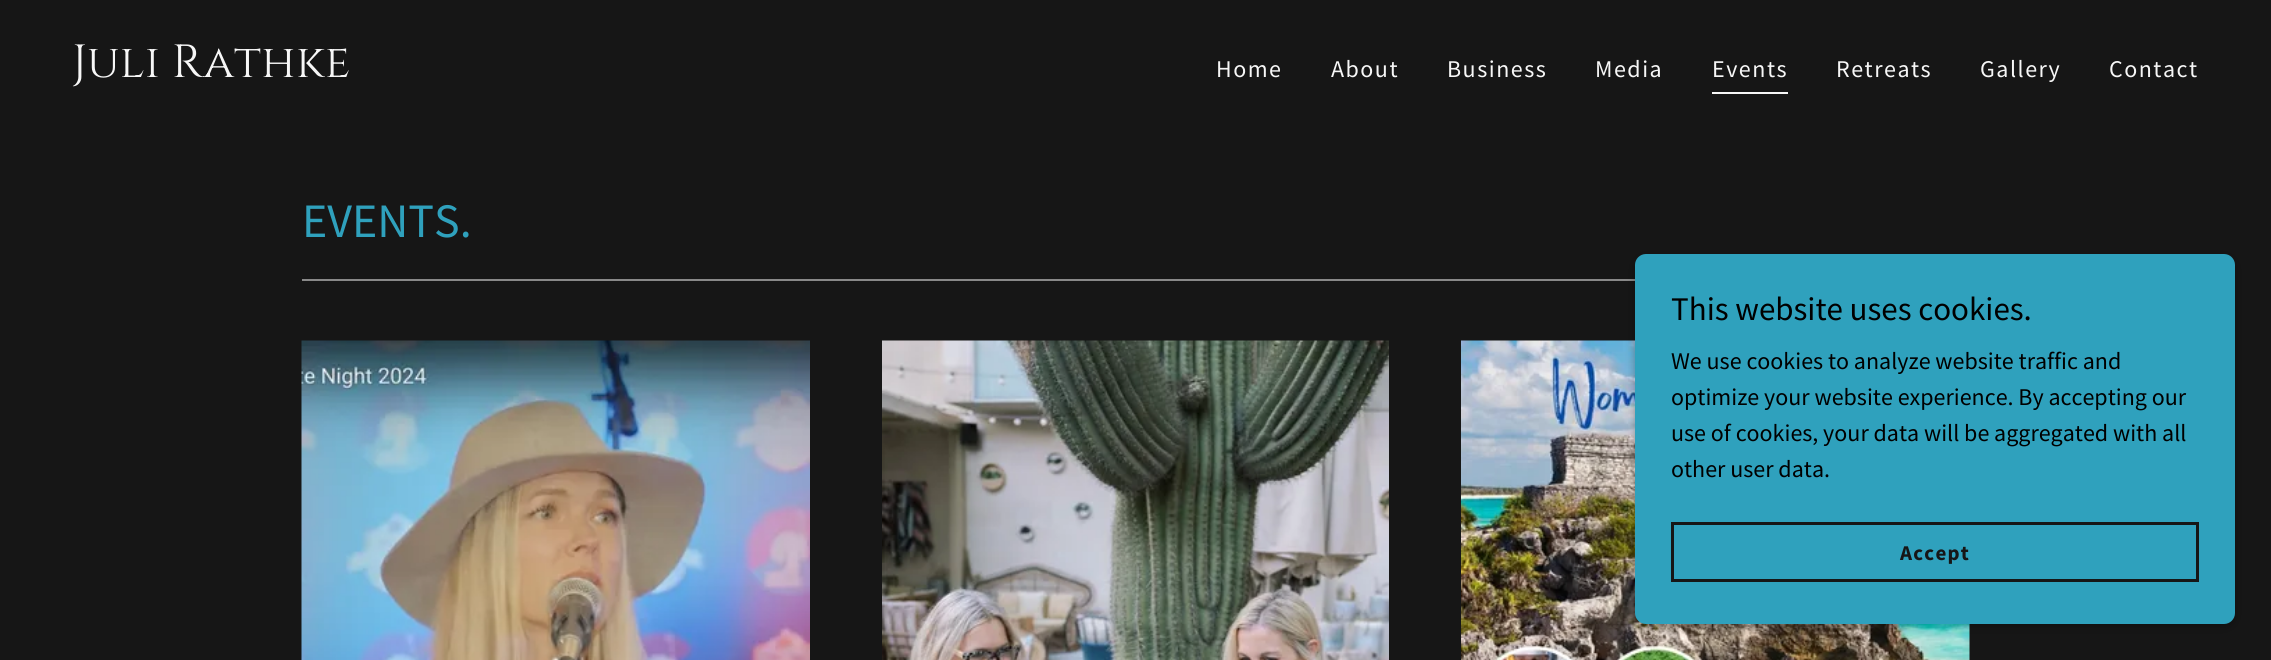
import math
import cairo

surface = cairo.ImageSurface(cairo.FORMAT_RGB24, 2271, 660)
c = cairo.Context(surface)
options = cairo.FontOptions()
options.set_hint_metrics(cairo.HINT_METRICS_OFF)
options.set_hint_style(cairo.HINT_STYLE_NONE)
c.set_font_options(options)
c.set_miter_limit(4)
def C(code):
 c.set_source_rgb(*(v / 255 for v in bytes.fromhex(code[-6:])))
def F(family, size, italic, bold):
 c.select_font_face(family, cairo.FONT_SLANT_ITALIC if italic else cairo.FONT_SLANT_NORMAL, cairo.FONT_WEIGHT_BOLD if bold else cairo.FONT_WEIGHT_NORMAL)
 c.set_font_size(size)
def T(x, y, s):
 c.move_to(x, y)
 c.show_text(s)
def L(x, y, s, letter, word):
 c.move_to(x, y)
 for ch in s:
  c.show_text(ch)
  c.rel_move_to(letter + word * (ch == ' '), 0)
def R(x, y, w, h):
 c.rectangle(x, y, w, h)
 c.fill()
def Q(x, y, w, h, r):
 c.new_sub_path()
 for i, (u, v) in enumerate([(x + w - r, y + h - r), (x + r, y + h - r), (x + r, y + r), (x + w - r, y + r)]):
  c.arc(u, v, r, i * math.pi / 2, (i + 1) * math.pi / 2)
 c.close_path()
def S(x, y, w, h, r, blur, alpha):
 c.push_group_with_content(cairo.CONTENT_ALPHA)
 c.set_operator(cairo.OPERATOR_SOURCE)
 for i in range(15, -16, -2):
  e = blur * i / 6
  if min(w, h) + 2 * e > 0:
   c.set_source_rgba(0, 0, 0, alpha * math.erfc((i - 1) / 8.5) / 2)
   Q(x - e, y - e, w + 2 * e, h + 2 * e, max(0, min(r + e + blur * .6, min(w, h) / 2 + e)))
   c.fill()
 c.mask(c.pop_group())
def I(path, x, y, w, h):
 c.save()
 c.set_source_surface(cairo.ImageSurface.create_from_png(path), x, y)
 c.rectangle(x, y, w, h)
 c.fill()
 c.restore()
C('161616')
c.paint()
F('Cinzel',46.5,0,0)
C('f7f7f7')
T(72,77,'Juli Rathke')
F('Source Sans Pro',24,0,0)
L(1216,77,'Home',1.5,0)
L(1331,77,'About',1.5,0)
L(1447,77,'Business',1.5,0)
L(1595,77,'Media',1.5,0)
R(1712,92,76,2)
L(1712,77,'Events',1.5,0)
L(1836,77,'Retreats',1.5,0)
L(1980,77,'Gallery',1.5,0)
L(2109,77,'Contact',1.5,0)
F('Source Sans Pro',48,0,0)
C('2fa1bd')
T(302,237,'EVENTS.')
C('898989')
R(302,279,1333,2)
I('1.png',301,340,509,320)
I('2.png',882,340,507,320)
I('3.png',1461,340,509,320)
C('000000')
S(1635,257,600,370,11,4.5,.3)
C('2fa1bd')
Q(1635,254,600,370,11)
c.fill()
F('Source Sans Pro',33,0,0)
C('000000')
T(1671,320,'This website uses cookies.')
F('Source Sans Pro',24,0,0)
T(1671,369,'We use cookies to analyze website traffic and')
T(1671,405,'optimize your website experience. By accepting our')
T(1671,441,'use of cookies, your data will be aggregated with all')
T(1671,477,'other user data.')
c.rectangle(1672.5,523.5,525,57)
C('161616')
c.set_line_width(3)
c.stroke()
F('Source Sans Pro',21,0,1)
L(1900,560,'Accept',1.25,0)
surface.write_to_png('o.png')
